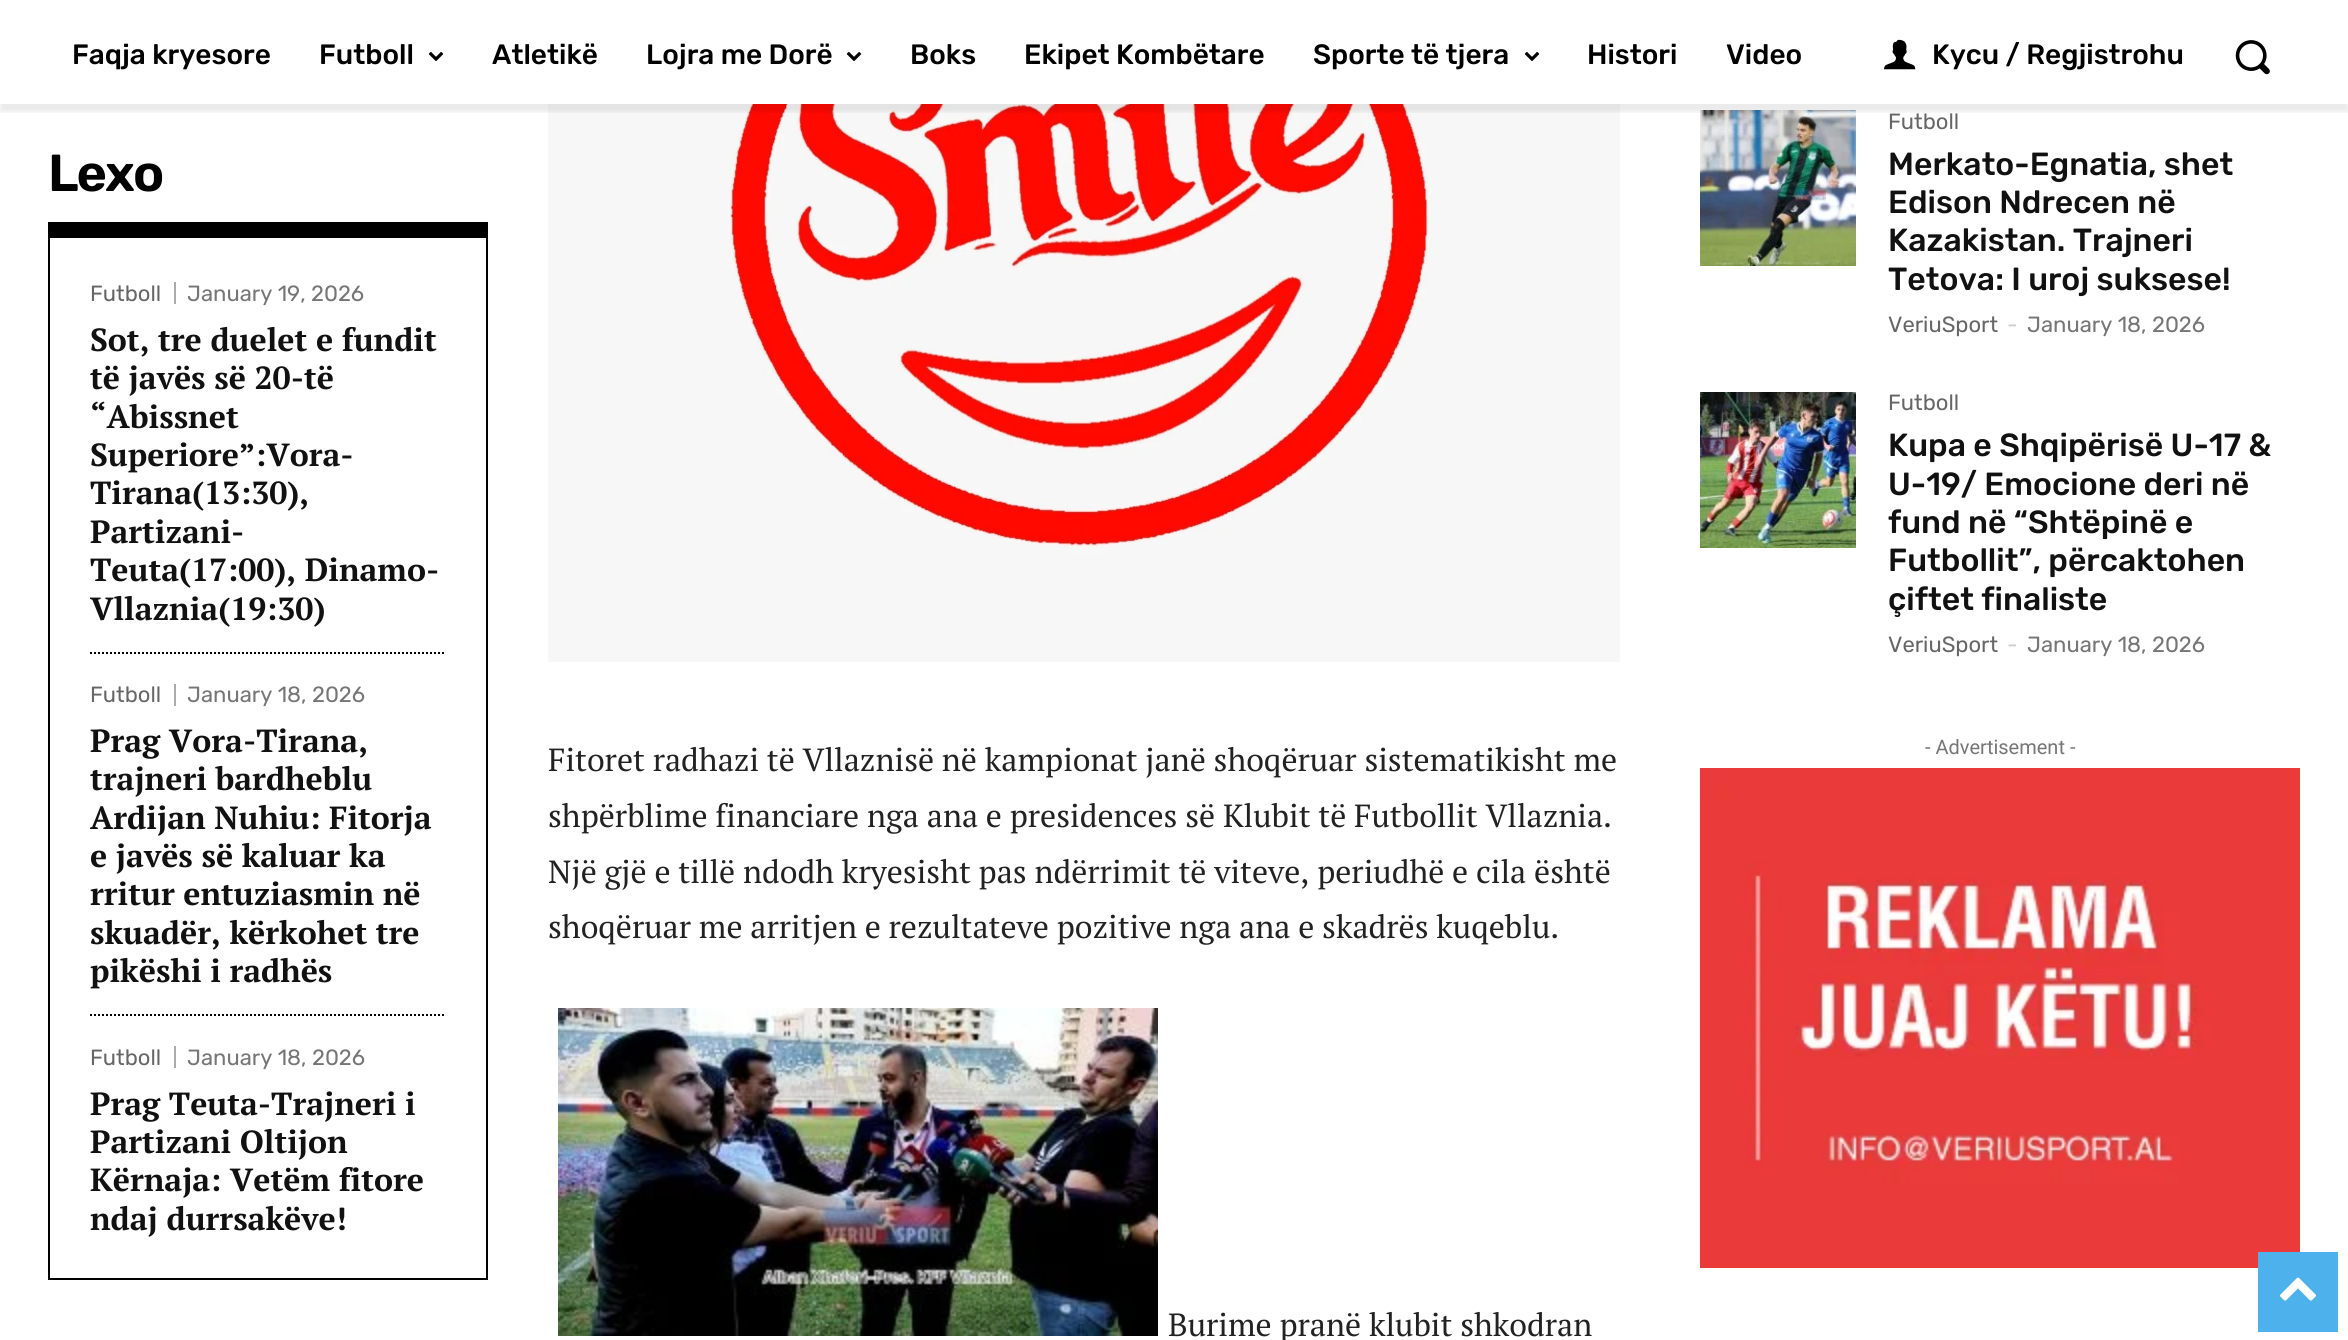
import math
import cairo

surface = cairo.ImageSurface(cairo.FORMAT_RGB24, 2348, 1340)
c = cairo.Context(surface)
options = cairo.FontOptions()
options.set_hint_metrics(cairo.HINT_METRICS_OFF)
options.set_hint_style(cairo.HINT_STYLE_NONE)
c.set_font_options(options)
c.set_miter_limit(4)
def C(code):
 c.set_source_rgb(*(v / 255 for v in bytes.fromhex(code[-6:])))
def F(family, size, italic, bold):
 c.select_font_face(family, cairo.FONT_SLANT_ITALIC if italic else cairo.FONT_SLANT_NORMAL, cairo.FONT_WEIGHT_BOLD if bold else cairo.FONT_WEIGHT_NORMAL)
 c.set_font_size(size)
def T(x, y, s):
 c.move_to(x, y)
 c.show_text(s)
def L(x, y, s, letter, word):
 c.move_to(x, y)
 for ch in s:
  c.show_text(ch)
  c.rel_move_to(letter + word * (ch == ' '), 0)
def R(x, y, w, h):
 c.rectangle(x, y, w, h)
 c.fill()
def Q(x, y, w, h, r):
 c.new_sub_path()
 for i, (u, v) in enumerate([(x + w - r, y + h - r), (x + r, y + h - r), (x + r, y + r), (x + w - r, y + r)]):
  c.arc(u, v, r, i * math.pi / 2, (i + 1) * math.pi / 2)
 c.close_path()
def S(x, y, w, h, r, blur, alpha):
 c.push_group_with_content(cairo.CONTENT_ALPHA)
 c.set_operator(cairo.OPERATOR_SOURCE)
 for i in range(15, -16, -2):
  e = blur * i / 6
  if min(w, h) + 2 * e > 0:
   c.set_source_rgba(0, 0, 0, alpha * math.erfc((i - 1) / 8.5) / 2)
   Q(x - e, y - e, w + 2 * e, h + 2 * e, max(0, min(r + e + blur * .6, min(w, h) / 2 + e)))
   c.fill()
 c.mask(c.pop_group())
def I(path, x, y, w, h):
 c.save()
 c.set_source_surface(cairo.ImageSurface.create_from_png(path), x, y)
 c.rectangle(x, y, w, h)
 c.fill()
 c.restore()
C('ffffff')
c.paint()
I('2.png',1884,39,32,31)
I('4.png',548,104,1072,558)
I('6.png',1700,110,156,156)
c.save()
c.rectangle(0,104,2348,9)
c.clip()
C('000000')
S(0,8,2348,104,0,2,.08)
c.restore()
F('Rubik Medium',28,0,0)
C('000000')
T(72,64,'Faqja kryesore')
T(319,64,'Futboll')
I('1.png',428,51,16,11)
T(492,64,'Atletikë')
T(646,64,'Lojra me Dorë')
I('1.png',846,51,16,11)
T(910,64,'Boks')
T(1024,64,'Ekipet Kombëtare')
T(1313,64,'Sporte të tjera')
I('1.png',1524,51,16,11)
T(1587,64,'Histori')
T(1726,64,'Video')
T(1932,64,'Kycu / Regjistrohu')
I('3.png',2235,40,35,35)
F('Rubik SemiBold',52,0,0)
L(48,191,'Lexo',-2,0)
R(50,222,436,16)
R(486,222,2,1058)
R(48,1278,440,2)
R(48,222,2,1058)
C('aaaaaa')
R(174,282,2,22)
F('Rubik',22,0,0)
C('666666')
T(90,301,'Futboll')
C('767676')
T(187,301,'January 19, 2026')
F('PT Serif',32,0,1)
C('111111')
T(90,351,'Sot, tre duelet e fundit')
T(90,389,'të javës së 20-të')
T(90,428,'“Abissnet')
T(90,466,'Superiore”:Vora-')
T(90,504,'Tirana(13:30),')
T(90,543,'Partizani-')
T(90,581,'Teuta(17:00), Dinamo-')
T(90,620,'Vllaznia(19:30)')
c.new_path()
c.move_to(90,653)
c.line_to(446,653)
C('000000')
c.set_dash([2,2])
c.stroke()
C('aaaaaa')
R(174,684,2,22)
F('Rubik',22,0,0)
C('666666')
T(90,702,'Futboll')
C('767676')
T(187,702,'January 18, 2026')
F('PT Serif',32,0,1)
C('111111')
T(90,752,'Prag Vora-Tirana,')
T(90,790,'trajneri bardheblu')
T(90,829,'Ardijan Nuhiu: Fitorja')
T(90,867,'e javës së kaluar ka')
T(90,905,'rritur entuziasmin në')
T(90,944,'skuadër, kërkohet tre')
T(90,982,'pikëshi i radhës')
c.new_path()
c.move_to(90,1015)
c.line_to(446,1015)
C('000000')
c.stroke()
C('aaaaaa')
R(174,1046,2,22)
F('Rubik',22,0,0)
C('666666')
T(90,1065,'Futboll')
C('767676')
T(187,1065,'January 18, 2026')
F('PT Serif',32,0,1)
C('111111')
T(90,1115,'Prag Teuta-Trajneri i')
T(90,1153,'Partizani Oltijon')
T(90,1191,'Kërnaja: Vetëm fitore')
T(90,1230,'ndaj durrsakëve!')
F('PT Serif',32,0,0)
C('222222')
T(548,771,'Fitoret radhazi të Vllaznisë në kampionat janë shoqëruar sistematikisht me')
T(548,827,'shpërblime financiare nga ana e presidences së Klubit të Futbollit Vllaznia.')
T(548,883,'Një gjë e tillë ndodh kryesisht pas ndërrimit të viteve, periudhë e cila është')
T(548,938,'shoqëruar me arritjen e rezultateve pozitive nga ana e skadrës kuqeblu.')
I('5.png',558,1008,600,328)
T(1168,1336,'Burime pranë klubit shkodran')
F('Rubik',22,0,0)
C('666666')
T(1888,129,'Futboll')
F('Rubik Medium',32,0,0)
C('111111')
T(1888,175,'Merkato-Egnatia, shet')
T(1888,213,'Edison Ndrecen në')
T(1888,251,'Kazakistan. Trajneri')
T(1888,290,'Tetova: I uroj suksese!')
F('Rubik',22,0,0)
C('666666')
T(1888,332,'VeriuSport')
C('cccccc')
T(2007,332,'-')
C('767676')
T(2027,332,'January 18, 2026')
I('7.png',1700,392,156,156)
C('666666')
T(1888,410,'Futboll')
F('Rubik Medium',32,0,0)
C('111111')
T(1888,456,'Kupa e Shqipërisë U-17 &')
T(1888,495,'U-19/ Emocione deri në')
T(1888,533,'fund në “Shtëpinë e')
T(1888,571,'Futbollit”, përcaktohen')
T(1888,610,'çiftet finaliste')
F('Rubik',22,0,0)
C('666666')
T(1888,652,'VeriuSport')
C('cccccc')
T(2007,652,'-')
C('767676')
T(2027,652,'January 18, 2026')
F('Roboto',20,0,0)
T(1925,754,'- Advertisement -')
I('8.png',1700,768,600,500)
C('4db2ec')
R(2258,1252,80,80)
I('9.png',2280,1277,36,24)
surface.write_to_png('o.png')
